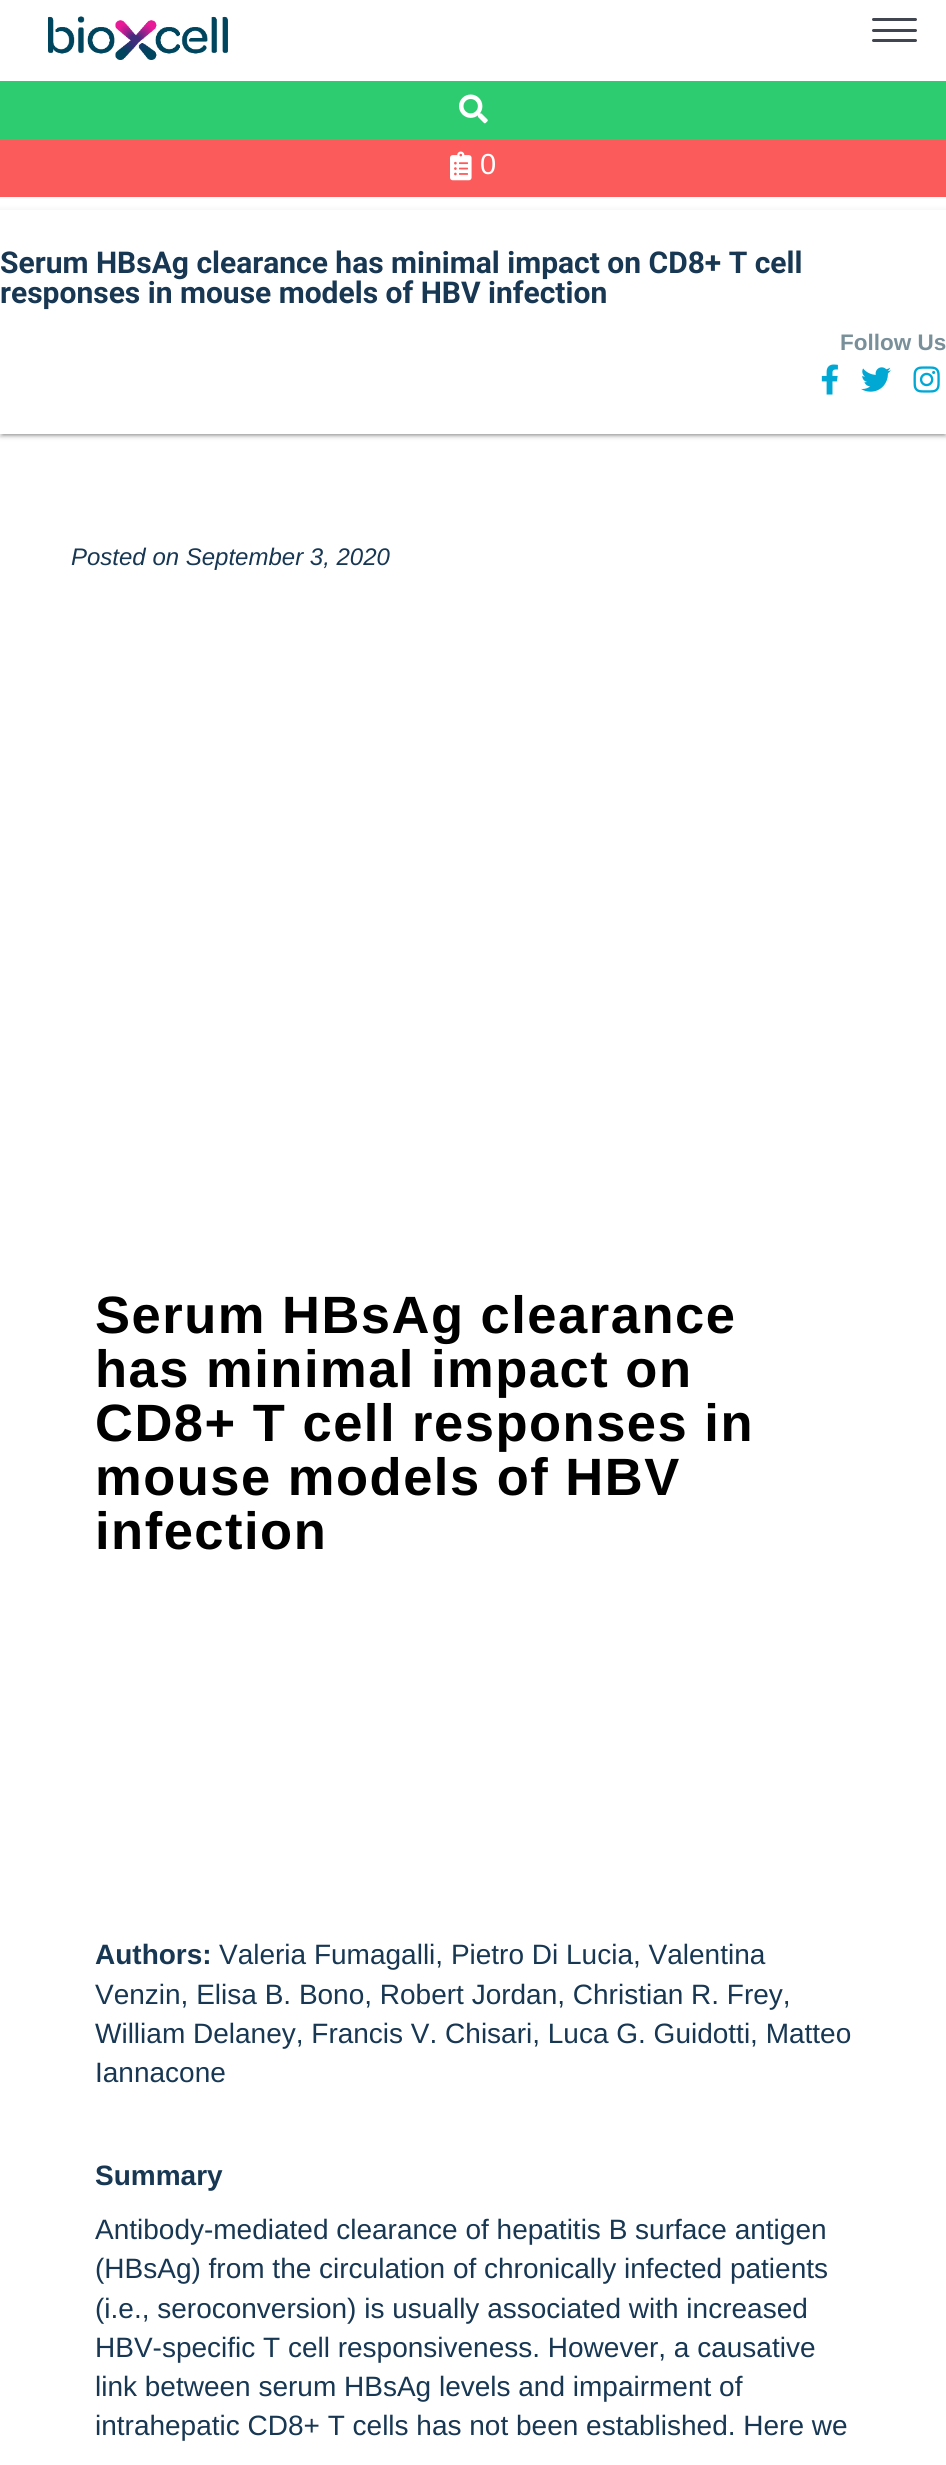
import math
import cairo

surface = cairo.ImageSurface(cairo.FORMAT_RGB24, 946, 2465)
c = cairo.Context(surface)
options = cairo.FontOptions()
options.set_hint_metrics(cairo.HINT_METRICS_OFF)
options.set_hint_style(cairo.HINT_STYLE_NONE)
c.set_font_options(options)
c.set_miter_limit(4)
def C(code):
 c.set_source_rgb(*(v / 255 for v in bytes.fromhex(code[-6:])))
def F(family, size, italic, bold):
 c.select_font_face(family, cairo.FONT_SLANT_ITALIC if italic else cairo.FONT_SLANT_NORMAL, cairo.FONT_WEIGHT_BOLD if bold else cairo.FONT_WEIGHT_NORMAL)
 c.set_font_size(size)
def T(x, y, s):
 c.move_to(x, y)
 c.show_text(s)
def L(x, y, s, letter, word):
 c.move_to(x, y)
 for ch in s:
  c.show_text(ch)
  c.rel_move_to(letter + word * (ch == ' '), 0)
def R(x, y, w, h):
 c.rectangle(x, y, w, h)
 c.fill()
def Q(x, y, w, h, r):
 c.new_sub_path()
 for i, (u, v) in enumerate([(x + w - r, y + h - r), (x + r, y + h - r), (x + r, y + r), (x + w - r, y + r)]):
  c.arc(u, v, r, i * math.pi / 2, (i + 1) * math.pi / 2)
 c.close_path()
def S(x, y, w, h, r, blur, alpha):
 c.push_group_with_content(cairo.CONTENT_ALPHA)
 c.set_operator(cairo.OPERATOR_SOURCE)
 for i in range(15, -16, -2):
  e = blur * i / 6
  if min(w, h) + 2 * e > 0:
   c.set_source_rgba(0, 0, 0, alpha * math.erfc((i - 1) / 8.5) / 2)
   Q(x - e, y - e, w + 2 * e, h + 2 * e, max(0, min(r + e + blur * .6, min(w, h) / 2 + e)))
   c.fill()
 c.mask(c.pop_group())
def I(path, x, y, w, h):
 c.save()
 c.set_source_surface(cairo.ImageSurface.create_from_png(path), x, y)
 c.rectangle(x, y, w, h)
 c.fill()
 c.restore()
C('ffffff')
c.paint()
I('1.png',48,16,180,44)
C('414550')
Q(872,18,45,3,1.5)
c.fill()
Q(872,29,45,3,1.5)
c.fill()
Q(872,39,45,3,1.5)
c.fill()
C('2ecc71')
R(0,81,946,59)
I('2.png',459,94,29,30)
C('fc5b5b')
R(0,140,946,57)
I('3.png',450,151,22,30)
F('Liberation Sans',29,0,0)
C('ffffff')
T(480,174,'0')
C('000000')
S(3,218,941,217,0,1,.2)
S(0,212,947,223,0,4,.12)
S(0,213,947,224,0,1.5,.14)
C('ffffff')
R(0,210,946,224)
F('Roboto',30,0,1)
C('173753')
T(0,273,'Serum HBsAg clearance has minimal impact on CD8+ T cell')
T(0,303,'responses in mouse models of HBV infection')
F('Liberation Sans',22.5,0,1)
C('798f9a')
T(840,350,'Follow Us')
I('4.png',821,364,17,31)
I('5.png',861,367,30,25)
I('6.png',913,366,27,27)
F('Liberation Sans',24,1,0)
C('173753')
T(71,565,'Posted on September 3, 2020')
F('Liberation Sans',52.5,0,1)
C('000000')
L(95,1333,'Serum HBsAg clearance',1.5,0)
L(95,1387,'has minimal impact on',1.5,0)
L(95,1441,'CD8+ T cell responses in',1.5,0)
L(95,1495,'mouse models of HBV',1.5,0)
L(95,1549,'infection',1.5,0)
F('Liberation Sans',28,0,1)
C('173753')
T(95,1964,'Authors:')
F('Liberation Sans',28,0,0)
T(219,1964,'Valeria Fumagalli, Pietro Di Lucia, Valentina')
T(95,2004,'Venzin, Elisa B. Bono, Robert Jordan, Christian R. Frey,')
T(95,2043,'William Delaney, Francis V. Chisari, Luca G. Guidotti, Matteo')
T(95,2082,'Iannacone')
F('Liberation Sans',28,0,1)
T(95,2185,'Summary')
F('Liberation Sans',28,0,0)
T(95,2239,'Antibody-mediated clearance of hepatitis B surface antigen')
T(95,2278,'(HBsAg) from the circulation of chronically infected patients')
T(95,2318,'(i.e., seroconversion) is usually associated with increased')
T(95,2357,'HBV-specific T cell responsiveness. However, a causative')
T(95,2396,'link between serum HBsAg levels and impairment of')
T(95,2435,'intrahepatic CD8+ T cells has not been established. Here we')
surface.write_to_png('o.png')
